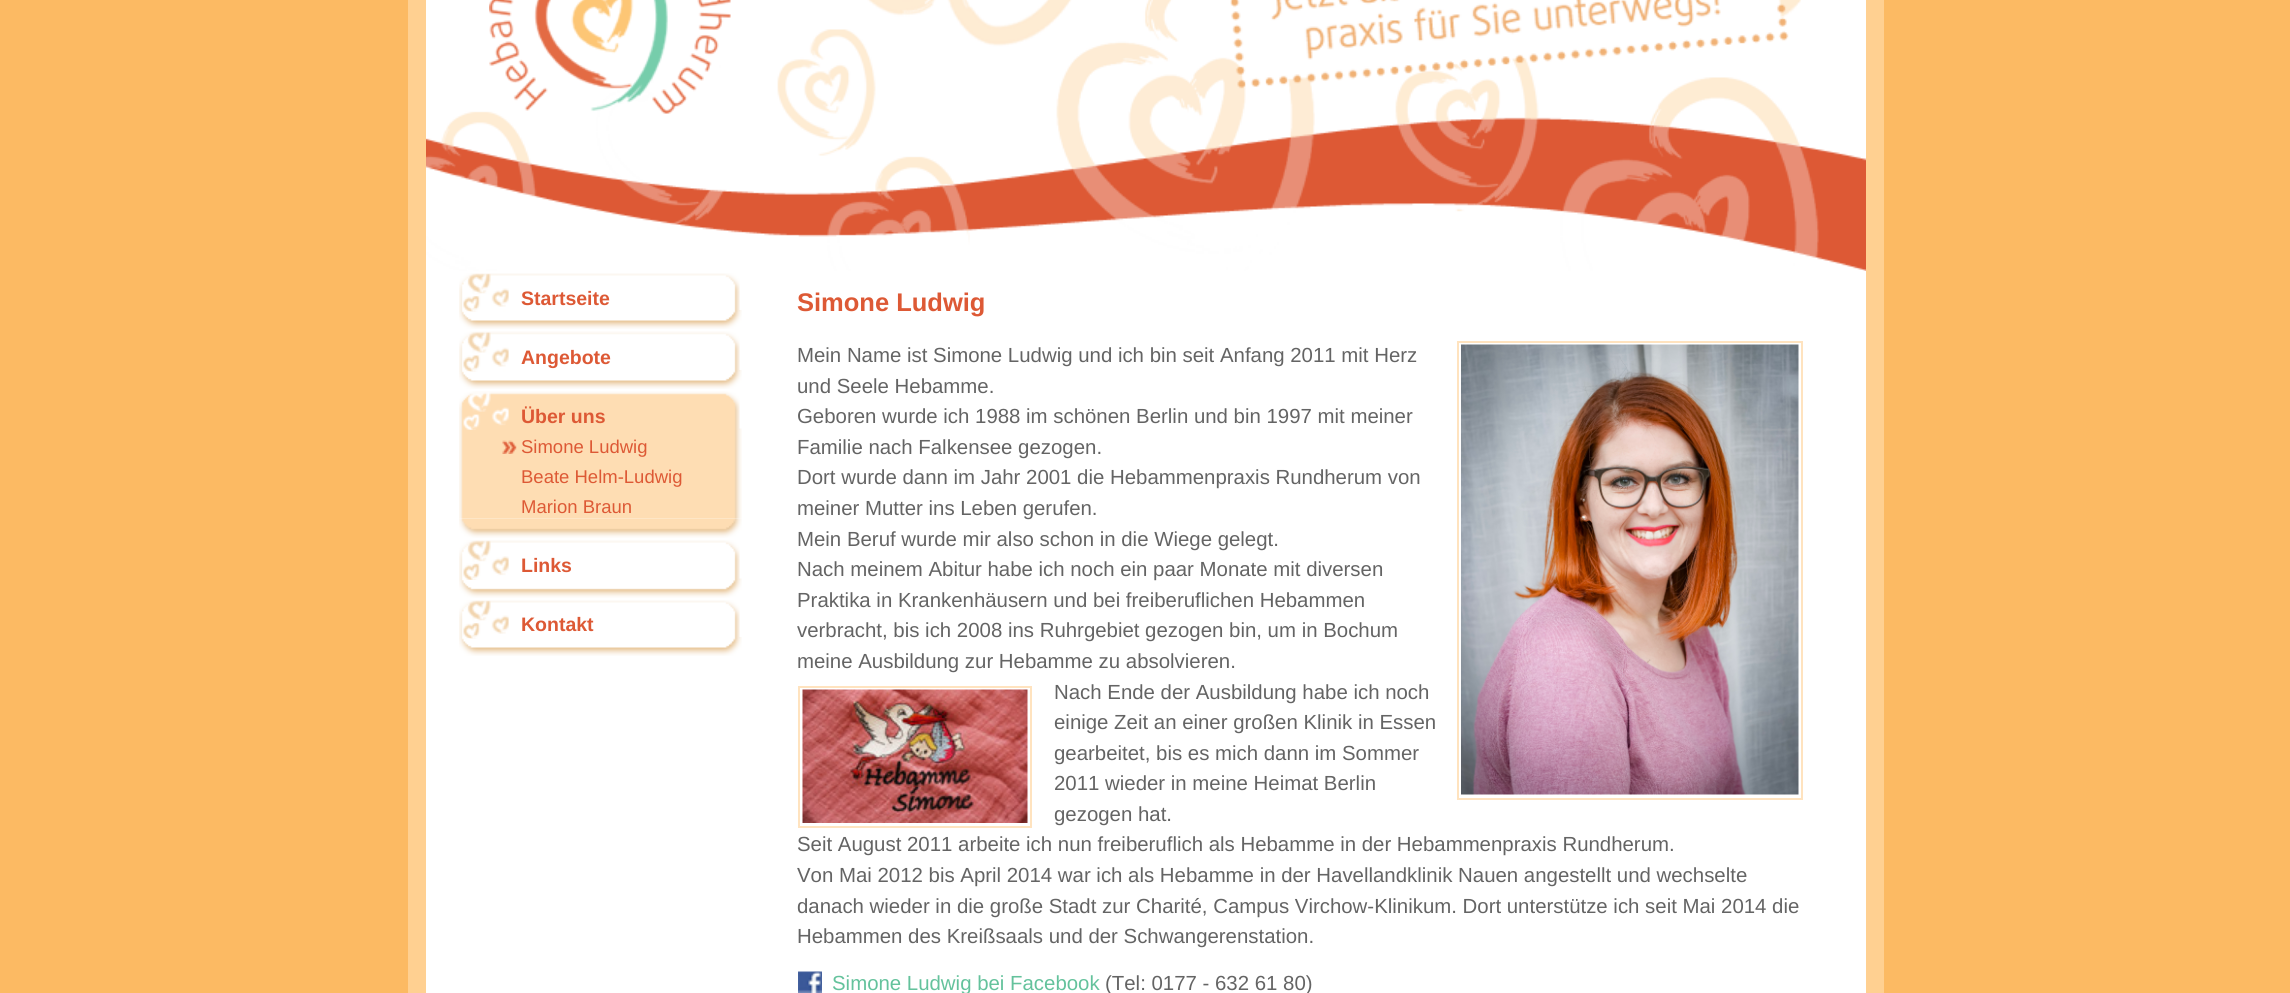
import math
import cairo

surface = cairo.ImageSurface(cairo.FORMAT_RGB24, 2290, 993)
c = cairo.Context(surface)
options = cairo.FontOptions()
options.set_hint_metrics(cairo.HINT_METRICS_OFF)
options.set_hint_style(cairo.HINT_STYLE_NONE)
c.set_font_options(options)
c.set_miter_limit(4)
def C(code):
 c.set_source_rgb(*(v / 255 for v in bytes.fromhex(code[-6:])))
def F(family, size, italic, bold):
 c.select_font_face(family, cairo.FONT_SLANT_ITALIC if italic else cairo.FONT_SLANT_NORMAL, cairo.FONT_WEIGHT_BOLD if bold else cairo.FONT_WEIGHT_NORMAL)
 c.set_font_size(size)
def T(x, y, s):
 c.move_to(x, y)
 c.show_text(s)
def R(x, y, w, h):
 c.rectangle(x, y, w, h)
 c.fill()
def I(path, x, y, w, h):
 c.save()
 c.set_source_surface(cairo.ImageSurface.create_from_png(path), x, y)
 c.rectangle(x, y, w, h)
 c.fill()
 c.restore()
C('fcba63')
c.paint()
C('ffd091')
R(408,0,1476,993)
C('ffffff')
R(426,271,1440,722)
I('1.png',426,0,1440,271)
I('2.png',489,0,242,114)
I('3.png',1230,0,559,89)
I('4.png',459,310,283,19)
I('5.png',459,273,281,39)
F('Liberation Sans',19.5,0,1)
C('dd5935')
T(521,305,'Startseite')
I('4.png',459,370,283,19)
I('6.png',459,331,281,41)
T(521,364,'Angebote')
I('7.png',459,518,283,20)
I('9.png',459,428,283,91)
I('8.png',459,391,281,39)
T(521,423,'Über uns')
I('10.png',502,440,15,14)
F('Liberation Sans',18.5,0,0)
T(521,453,'Simone Ludwig')
T(521,483,'Beate Helm-Ludwig')
T(521,513,'Marion Braun')
I('11.png',459,578,283,20)
I('12.png',459,540,281,40)
F('Liberation Sans',19.5,0,1)
T(521,572,'Links')
I('4.png',459,637,283,19)
I('5.png',459,600,281,39)
T(521,631,'Kontakt')
F('Liberation Sans',25.5,0,1)
T(797,311,'Simone Ludwig')
F('Liberation Sans',20.4,0,0)
C('646464')
T(797,362,'Mein Name ist Simone Ludwig und ich bin seit Anfang 2011 mit Herz')
c.rectangle(1458,342,344,457)
C('ffe3bf')
c.stroke()
I('13.png',1461,344,338,451)
C('646464')
T(797,393,'und Seele Hebamme.')
T(797,423,'Geboren wurde ich 1988 im schönen Berlin und bin 1997 mit meiner')
T(797,454,'Familie nach Falkensee gezogen.')
T(797,484,'Dort wurde dann im Jahr 2001 die Hebammenpraxis Rundherum von')
T(797,515,'meiner Mutter ins Leben gerufen.')
T(797,546,'Mein Beruf wurde mir also schon in die Wiege gelegt.')
T(797,576,'Nach meinem Abitur habe ich noch ein paar Monate mit diversen')
T(797,607,'Praktika in Krankenhäusern und bei freiberuflichen Hebammen')
T(797,637,'verbracht, bis ich 2008 ins Ruhrgebiet gezogen bin, um in Bochum')
T(797,668,'meine Ausbildung zur Hebamme zu absolvieren.')
c.rectangle(799,687,232,140)
C('ffe3bf')
c.stroke()
I('14.png',802,689,226,134)
C('646464')
T(1054,699,'Nach Ende der Ausbildung habe ich noch')
T(1054,729,'einige Zeit an einer großen Klinik in Essen')
T(1054,760,'gearbeitet, bis es mich dann im Sommer')
T(1054,790,'2011 wieder in meine Heimat Berlin')
T(1054,821,'gezogen hat.')
T(797,851,'Seit August 2011 arbeite ich nun freiberuflich als Hebamme in der Hebammenpraxis Rundherum.')
T(797,882,'Von Mai 2012 bis April 2014 war ich als Hebamme in der Havellandklinik Nauen angestellt und wechselte')
T(797,913,'danach wieder in die große Stadt zur Charité, Campus Virchow-Klinikum. Dort unterstütze ich seit Mai 2014 die')
T(797,943,'Hebammen des Kreißsaals und der Schwangerenstation.')
I('15.png',798,971,24,22)
C('64c29c')
T(832,990,'Simone Ludwig bei Facebook')
C('646464')
T(1105,990,'(Tel: 0177 - 632 61 80)')
surface.write_to_png('o.png')
